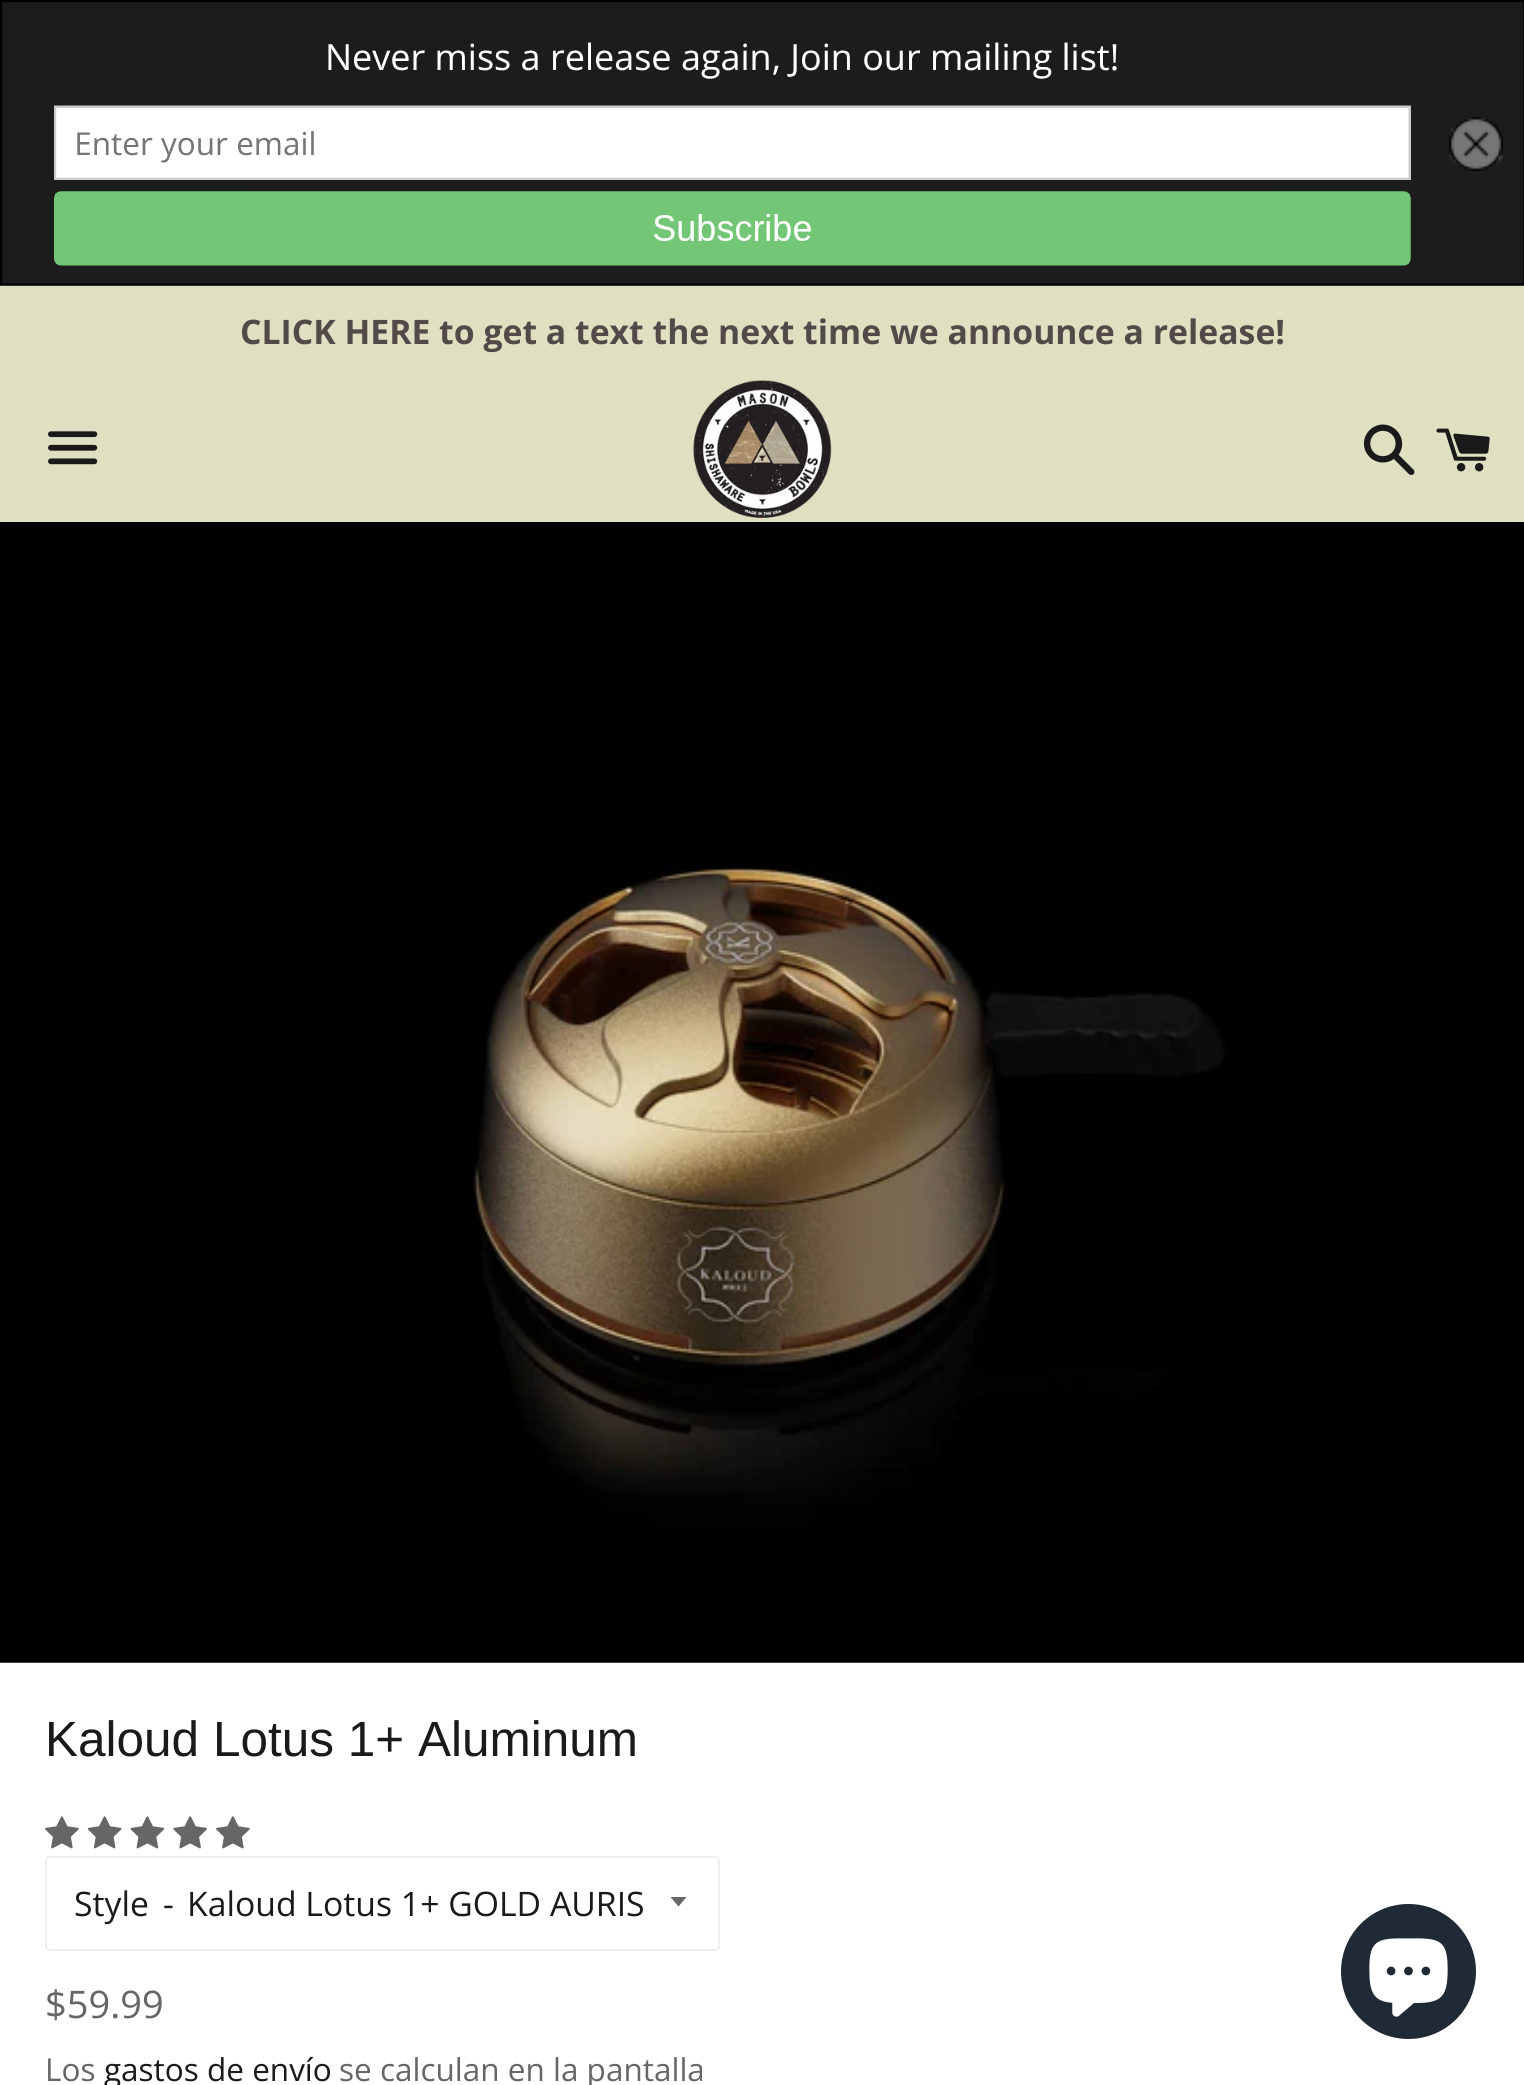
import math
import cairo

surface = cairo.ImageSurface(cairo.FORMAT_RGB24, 1524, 2085)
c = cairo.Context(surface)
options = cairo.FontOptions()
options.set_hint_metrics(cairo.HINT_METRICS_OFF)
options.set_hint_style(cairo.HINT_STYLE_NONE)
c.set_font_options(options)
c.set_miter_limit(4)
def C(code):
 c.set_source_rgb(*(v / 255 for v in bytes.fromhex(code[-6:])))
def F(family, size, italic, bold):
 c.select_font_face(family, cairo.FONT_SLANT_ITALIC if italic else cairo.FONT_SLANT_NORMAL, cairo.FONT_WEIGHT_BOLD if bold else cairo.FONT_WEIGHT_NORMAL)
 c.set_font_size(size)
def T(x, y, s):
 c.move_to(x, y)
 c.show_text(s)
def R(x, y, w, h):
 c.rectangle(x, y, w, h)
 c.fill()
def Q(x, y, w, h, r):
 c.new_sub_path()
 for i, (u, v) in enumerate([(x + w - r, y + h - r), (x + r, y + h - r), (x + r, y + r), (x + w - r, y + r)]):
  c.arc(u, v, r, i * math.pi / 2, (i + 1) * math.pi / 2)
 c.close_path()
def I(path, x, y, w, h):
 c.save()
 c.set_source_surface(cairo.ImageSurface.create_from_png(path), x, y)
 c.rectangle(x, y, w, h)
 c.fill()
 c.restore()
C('ffffff')
c.paint()
I('1.png',0,0,1524,286)
C('dfe0c1')
R(0,286,1524,236)
I('2.png',48,431,50,34)
I('3.png',693,380,139,138)
I('4.png',1363,424,52,51)
I('5.png',1436,428,54,44)
F('Open Sans',33.75,0,1)
C('524949')
T(240,344,'CLICK HERE to get a text the next time we announce a release!')
I('6.png',0,522,1524,1141)
F('Liberation Sans',49.5,0,0)
C('1a1a1a')
T(45,1756,'Kaloud Lotus 1+ Aluminum')
I('7.png',45,1816,34,33)
I('8.png',87,1816,35,33)
I('9.png',130,1816,35,33)
I('10.png',173,1816,34,33)
I('7.png',216,1816,34,33)
Q(46,1857,673,93,4)
C('eeeeee')
c.stroke()
F('Open Sans',33.75,0,0)
C('1a1a1a')
T(74,1916,'Style')
T(163,1916,'-')
C('666666')
c.new_path()
c.move_to(670.5,1897)
c.line_to(678.5,1906.5)
c.line_to(686.5,1897)
c.close_path()
c.fill()
C('1a1a1a')
T(187,1916,'Kaloud Lotus 1+ GOLD AURIS')
F('Open Sans',38,0,0)
C('666666')
T(45,2018,'$59.99')
F('Open Sans',31.5,0,0)
T(45,2081,'Los')
C('1a1a1a')
T(104,2081,'gastos de envío')
C('666666')
T(339,2081,'se calculan en la pantalla')
C('202a36')
c.new_path()
c.arc(1408.5,1971.5,67.5,0,2 * math.pi)
c.fill()
I('11.png',1369,1938,79,79)
surface.write_to_png('o.png')
